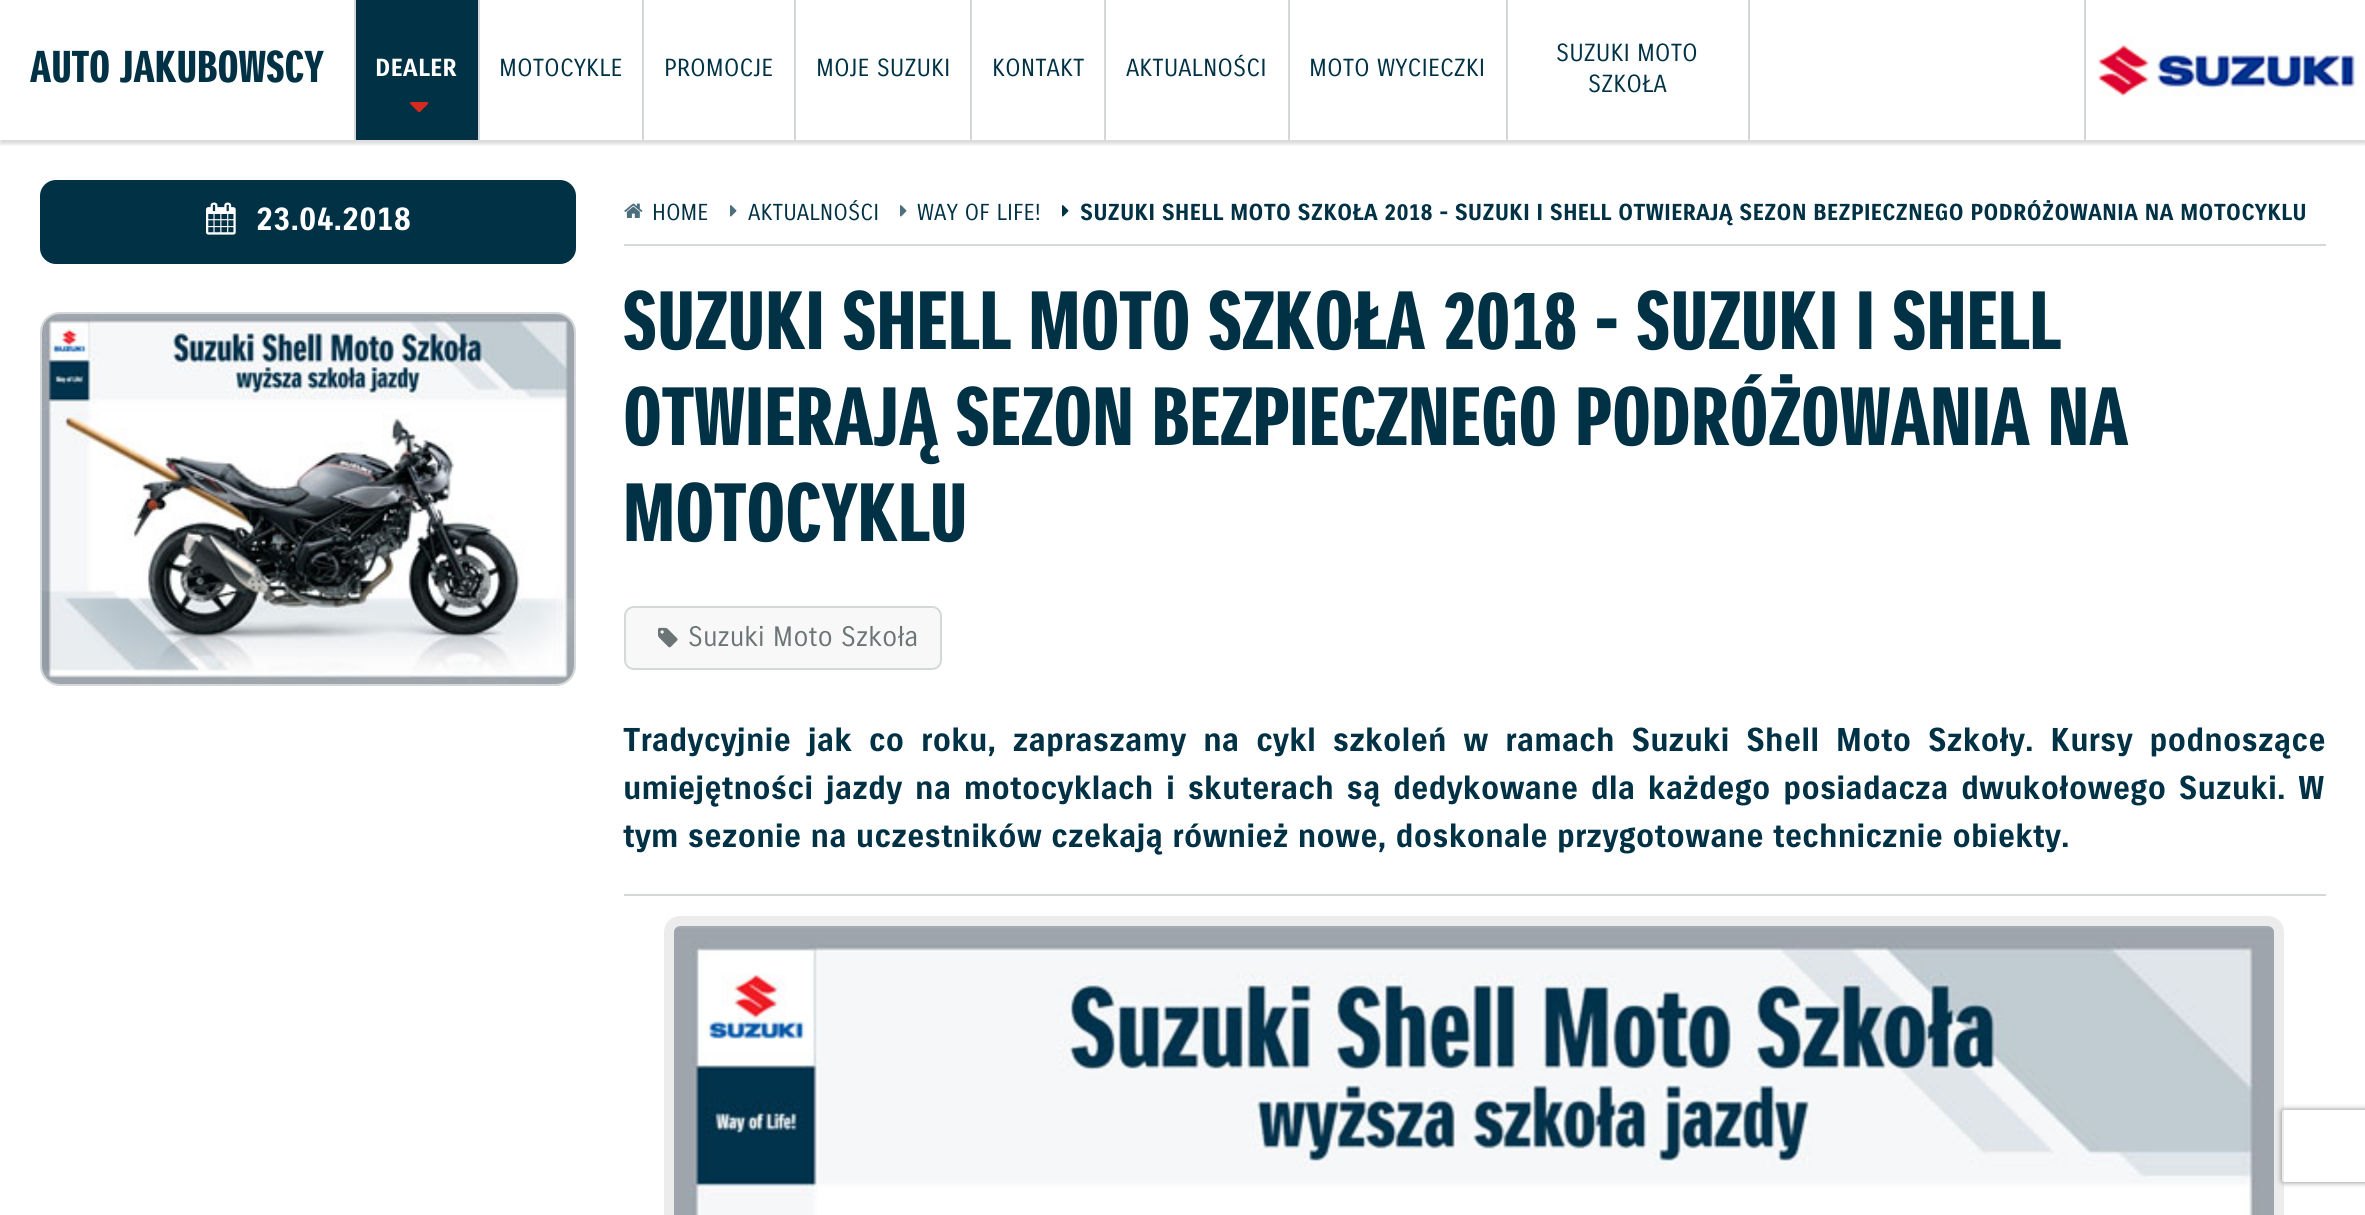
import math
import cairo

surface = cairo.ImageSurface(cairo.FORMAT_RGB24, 2365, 1215)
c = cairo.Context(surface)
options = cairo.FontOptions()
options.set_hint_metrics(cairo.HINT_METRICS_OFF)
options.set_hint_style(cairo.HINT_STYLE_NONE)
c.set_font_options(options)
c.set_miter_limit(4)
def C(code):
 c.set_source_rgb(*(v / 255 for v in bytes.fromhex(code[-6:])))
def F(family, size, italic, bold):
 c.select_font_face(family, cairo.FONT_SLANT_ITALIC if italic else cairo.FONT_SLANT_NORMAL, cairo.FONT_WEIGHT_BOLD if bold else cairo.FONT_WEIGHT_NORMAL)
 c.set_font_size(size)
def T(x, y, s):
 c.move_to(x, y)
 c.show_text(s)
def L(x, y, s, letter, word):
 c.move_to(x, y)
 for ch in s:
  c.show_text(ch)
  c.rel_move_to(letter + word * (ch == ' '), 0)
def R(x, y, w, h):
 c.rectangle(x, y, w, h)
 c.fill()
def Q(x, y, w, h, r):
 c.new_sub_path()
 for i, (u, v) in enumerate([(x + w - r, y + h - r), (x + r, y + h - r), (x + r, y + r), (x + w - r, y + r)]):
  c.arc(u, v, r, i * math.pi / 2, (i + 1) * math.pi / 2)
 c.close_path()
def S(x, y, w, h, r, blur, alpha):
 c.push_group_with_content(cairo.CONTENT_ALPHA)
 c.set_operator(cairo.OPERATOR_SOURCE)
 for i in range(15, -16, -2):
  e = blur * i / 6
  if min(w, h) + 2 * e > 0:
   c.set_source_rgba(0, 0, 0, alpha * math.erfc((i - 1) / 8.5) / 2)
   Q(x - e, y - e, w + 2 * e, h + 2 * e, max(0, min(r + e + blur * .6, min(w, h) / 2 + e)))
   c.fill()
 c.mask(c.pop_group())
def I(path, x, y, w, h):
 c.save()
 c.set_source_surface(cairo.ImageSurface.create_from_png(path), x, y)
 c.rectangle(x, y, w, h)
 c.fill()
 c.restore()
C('ffffff')
c.paint()
c.save()
c.rectangle(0,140,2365,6)
c.clip()
C('000000')
S(0,4,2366,140,0,2,.15)
c.restore()
C('d4d8d8')
R(354,0,2,140)
F('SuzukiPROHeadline',43.25,0,1)
C('003145')
T(30,82,'AUTO JAKUBOWSCY')
C('d4d8d8')
R(478,0,2,140)
C('003145')
R(356,0,122,140)
F('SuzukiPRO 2',24,0,0)
C('ffffff')
T(375,76,'DEALER')
I('1.png',410,102,19,11)
C('d4d8d8')
R(642,0,2,140)
F('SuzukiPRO',24,0,0)
C('003145')
T(499,76,'MOTOCYKLE')
C('d4d8d8')
R(794,0,2,140)
C('003145')
T(664,76,'PROMOCJE')
C('d4d8d8')
R(970,0,2,140)
C('003145')
T(816,76,'MOJE SUZUKI')
C('d4d8d8')
R(1104,0,2,140)
C('003145')
T(992,76,'KONTAKT')
C('d4d8d8')
R(1288,0,2,140)
C('003145')
T(1126,76,'AKTUALNOŚCI')
C('d4d8d8')
R(1506,0,2,140)
C('003145')
T(1309,76,'MOTO WYCIECZKI')
C('d4d8d8')
R(1748,0,2,140)
C('003145')
T(1556,61,'SUZUKI MOTO')
T(1588,92,'SZKOŁA')
C('d4d8d8')
R(2084,0,2,140)
I('2.png',2097,38,259,59)
C('003145')
Q(40,180,536,84,16)
c.fill()
I('3.png',206,202,30,33)
F('SuzukiPRO 2',32,0,0)
C('ffffff')
T(256,230,'23.04.2018')
Q(41,313,534,372,19)
C('d4d8d8')
c.stroke()
I('4.png',42,314,532,370)
R(624,244,1702,2)
I('5.png',624,203,19,15)
F('SuzukiPRO',22.4,0,0)
C('003145')
T(652,220,'HOME')
I('6.png',730,205,7,12)
T(748,220,'AKTUALNOŚCI')
I('6.png',900,205,7,12)
T(917,220,'WAY OF LIFE!')
I('7.png',1062,205,7,12)
F('SuzukiPRO 2',22.4,0,0)
T(1080,220,'SUZUKI SHELL MOTO SZKOŁA 2018 - SUZUKI I SHELL OTWIERAJĄ SEZON BEZPIECZNEGO PODRÓŻOWANIA NA MOTOCYKLU')
F('SuzukiPROHeadline',80,0,1)
T(623,349,'SUZUKI SHELL MOTO SZKOŁA 2018 - SUZUKI I SHELL')
T(623,445,'OTWIERAJĄ SEZON BEZPIECZNEGO PODRÓŻOWANIA NA')
T(623,541,'MOTOCYKLU')
C('f8f8f8')
Q(625,607,316,62,9)
c.fill_preserve()
C('d4d8d8')
c.stroke()
I('8.png',658,627,20,21)
F('SuzukiPRO',27.25,0,0)
C('6b7575')
T(688,646,'Suzuki Moto Szkoła')
F('SuzukiPRO 2',32,0,0)
C('003145')
L(623,751,'Tradycyjnie jak co roku, zapraszamy na cykl szkoleń w ramach Suzuki Shell Moto Szkoły. Kursy podnoszące',0,7.5)
L(623,799,'umiejętności jazdy na motocyklach i skuterach są dedykowane dla każdego posiadacza dwukołowego Suzuki. W',0,3.4)
T(623,847,'tym sezonie na uczestników czekają również nowe, doskonale przygotowane technicznie obiekty.')
C('d4d8d8')
R(624,894,1702,2)
Q(669,921,1610,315,11)
C('ececec')
c.set_line_width(10)
c.stroke()
I('9.png',674,926,1600,289)
c.save()
c.set_fill_rule(cairo.FILL_RULE_EVEN_ODD)
c.new_path()
c.move_to(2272,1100)
c.line_to(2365,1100)
c.line_to(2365,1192)
c.line_to(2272,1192)
c.close_path()
c.move_to(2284,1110)
c.line_to(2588,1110)
c.curve_to(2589,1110,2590,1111,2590,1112)
c.line_to(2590,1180)
c.curve_to(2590,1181,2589,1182,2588,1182)
c.line_to(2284,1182)
c.curve_to(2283,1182,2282,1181,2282,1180)
c.line_to(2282,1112)
c.curve_to(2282,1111,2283,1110,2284,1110)
c.close_path()
c.clip()
C('808080')
S(2282,1110,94,72,2,3,1)
c.restore()
surface.write_to_png('o.png')
